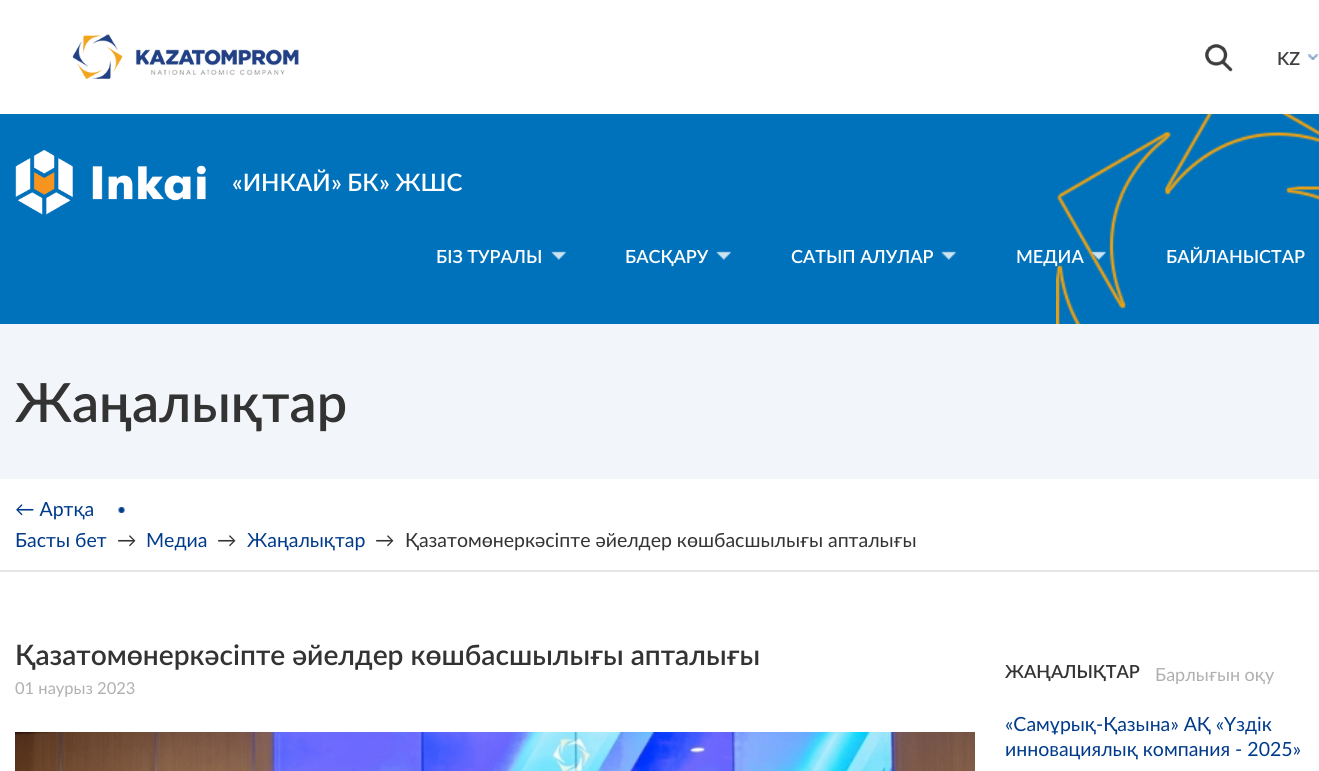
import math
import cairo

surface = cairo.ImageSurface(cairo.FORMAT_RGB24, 1319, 771)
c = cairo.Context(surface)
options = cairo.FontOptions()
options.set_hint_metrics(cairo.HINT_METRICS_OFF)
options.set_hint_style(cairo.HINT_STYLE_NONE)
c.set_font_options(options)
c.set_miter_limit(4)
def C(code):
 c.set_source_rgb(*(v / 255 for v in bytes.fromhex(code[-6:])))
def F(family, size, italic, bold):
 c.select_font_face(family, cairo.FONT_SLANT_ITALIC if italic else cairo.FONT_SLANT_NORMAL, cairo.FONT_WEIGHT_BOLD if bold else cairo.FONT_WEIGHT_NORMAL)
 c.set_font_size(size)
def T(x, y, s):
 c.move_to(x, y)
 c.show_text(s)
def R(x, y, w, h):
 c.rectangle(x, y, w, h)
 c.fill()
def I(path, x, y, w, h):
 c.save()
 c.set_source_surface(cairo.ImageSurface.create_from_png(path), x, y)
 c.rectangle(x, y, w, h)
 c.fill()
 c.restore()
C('ffffff')
c.paint()
I('1.png',72,34,227,45)
I('2.png',1205,44,28,28)
F('Lato SemiBold',18,0,0)
C('3c3d3d')
T(1277,65,'KZ')
I('3.png',1308,54,11,6)
C('0072bc')
R(0,114,1319,210)
I('4.png',1056,114,263,210)
I('5.png',15,149,191,66)
F('Lato SemiBold',24,0,0)
C('ffffff')
T(232,191,'«ИНКАЙ» БК» ЖШС')
F('Lato SemiBold',18,0,0)
T(436,263,'БІЗ ТУРАЛЫ')
I('6.png',551,251,15,9)
T(625,263,'БАСҚАРУ')
I('6.png',716,251,15,9)
T(791,263,'САТЫП АЛУЛАР')
I('7.png',941,251,15,9)
T(1016,263,'МЕДИА')
I('8.png',1091,251,15,9)
T(1166,263,'БАЙЛАНЫСТАР')
C('f2f5f9')
R(0,324,1319,155)
F('Lato SemiBold',54,0,0)
C('333333')
T(15,422,'Жаңалықтар')
C('e5e5e5')
R(0,570,1319,2)
I('9.png',118,507,7,6)
F('Lato',19.5,0,0)
C('003a8a')
T(15,516,'← Артқа')
T(15,547,'Басты бет')
C('333333')
T(117,547,'→')
C('003a8a')
T(146,547,'Медиа')
C('333333')
T(217,547,'→')
C('003a8a')
T(247,547,'Жаңалықтар')
C('333333')
T(375,547,'→')
T(405,547,'Қазатомөнеркәсіпте әйелдер көшбасшылығы апталығы')
F('Lato SemiBold',28.15,0,0)
T(15,665,'Қазатомөнеркәсіпте әйелдер көшбасшылығы апталығы')
F('Lato',16.5,0,0)
C('b0b0b0')
T(15,694,'01 наурыз 2023')
I('10.png',15,732,960,39)
F('Lato SemiBold',18,0,0)
C('333333')
T(1005,678,'ЖАҢАЛЫҚТАР')
F('Lato',18,0,0)
C('b0b0b0')
T(1155,681,'Барлығын оқу')
F('Lato',19.5,0,0)
C('003a8a')
T(1005,731,'«Самұрық-Қазына» АҚ «Үздік')
T(1005,756,'инновациялық компания - 2025»')
surface.write_to_png('o.png')
